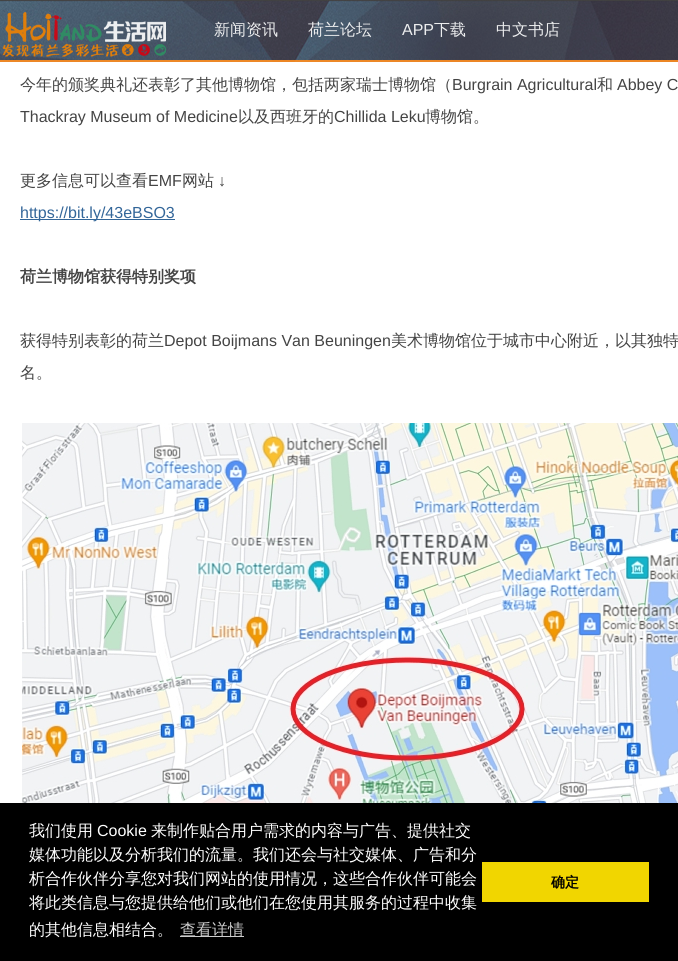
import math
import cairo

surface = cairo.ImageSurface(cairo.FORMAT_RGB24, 678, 961)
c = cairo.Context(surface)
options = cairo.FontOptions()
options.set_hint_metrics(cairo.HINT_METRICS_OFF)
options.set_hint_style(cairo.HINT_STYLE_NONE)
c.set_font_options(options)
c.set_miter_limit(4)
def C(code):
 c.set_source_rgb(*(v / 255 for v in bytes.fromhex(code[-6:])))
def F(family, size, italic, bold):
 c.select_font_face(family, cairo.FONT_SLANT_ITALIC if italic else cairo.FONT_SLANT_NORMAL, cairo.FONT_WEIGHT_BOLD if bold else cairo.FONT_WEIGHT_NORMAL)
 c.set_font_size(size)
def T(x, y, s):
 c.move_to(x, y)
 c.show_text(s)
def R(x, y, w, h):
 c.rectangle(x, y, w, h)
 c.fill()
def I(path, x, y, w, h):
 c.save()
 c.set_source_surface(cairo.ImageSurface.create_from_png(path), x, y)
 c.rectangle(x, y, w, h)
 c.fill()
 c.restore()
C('ffffff')
c.paint()
I('1.png',0,0,678,62)
c.set_source_rgba(1,0.557,0.129,0.9)
R(0,60,678,2)
I('2.png',2,12,164,45)
F('WenQuanYi Zen Hei Medium',16,0,0)
C('ecedee')
T(214,35,'新闻资讯')
T(308,35,'荷兰论坛')
F('Liberation Sans',16,0,0)
T(402,35,'APP')
F('WenQuanYi Zen Hei Medium',16,0,0)
T(434,35,'下载')
T(496,35,'中文书店')
C('444444')
T(20,90,'今年的颁奖典礼还表彰了其他博物馆，包括两家瑞士博物馆（')
F('Liberation Sans',16,0,0)
T(452,90,'Burgrain Agricultural')
F('WenQuanYi Zen Hei Medium',16,0,0)
T(597,90,'和')
F('Liberation Sans',16,0,0)
T(617,90,'Abbey C')
T(20,122,'Thackray Museum of Medicine')
F('WenQuanYi Zen Hei Medium',16,0,0)
T(238,122,'以及西班牙的')
F('Liberation Sans',16,0,0)
T(334,122,'Chillida Leku')
F('WenQuanYi Zen Hei Medium',16,0,0)
T(425,122,'博物馆。')
T(20,186,'更多信息可以查看')
F('Liberation Sans',16,0,0)
T(148,186,'EMF')
F('WenQuanYi Zen Hei Medium',16,0,0)
T(182,186,'网站')
F('Liberation Sans',16,0,0)
T(218,186,'↓')
C('336699')
R(20,219,155,1)
T(20,218,'https://bit.ly/43eBSO3')
F('WenQuanYi Zen Hei',16,0,1)
C('444444')
T(20,282,'荷兰博物馆获得特别奖项')
F('WenQuanYi Zen Hei Medium',16,0,0)
T(20,346,'获得特别表彰的荷兰')
F('Liberation Sans',16,0,0)
T(164,346,'Depot Boijmans Van Beuningen')
F('WenQuanYi Zen Hei Medium',16,0,0)
T(391,346,'美术博物馆位于城市中心附近，以其独特')
T(20,378,'名。')
I('3.png',22,423,656,380)
C('000000')
R(0,803,678,158)
C('ffffff')
T(29,836,'我们使用')
F('Liberation Sans',16,0,0)
T(97,836,'Cookie')
F('WenQuanYi Zen Hei Medium',16,0,0)
T(151,836,'来制作贴合用户需求的内容与广告、提供社交')
T(29,860,'媒体功能以及分析我们的流量。我们还会与社交媒体、广告和分')
T(29,884,'析合作伙伴分享您对我们网站的使用情况，这些合作伙伴可能会')
T(29,908,'将此类信息与您提供给他们或他们在您使用其服务的过程中收集')
T(29,935,'的其他信息相结合。')
C('cccccc')
R(180,936,64,1)
T(180,935,'查看详情')
C('f1d600')
R(482,862,167,40)
F('WenQuanYi Zen Hei',14,0,1)
C('000000')
T(551,887,'确定')
surface.write_to_png('o.png')
